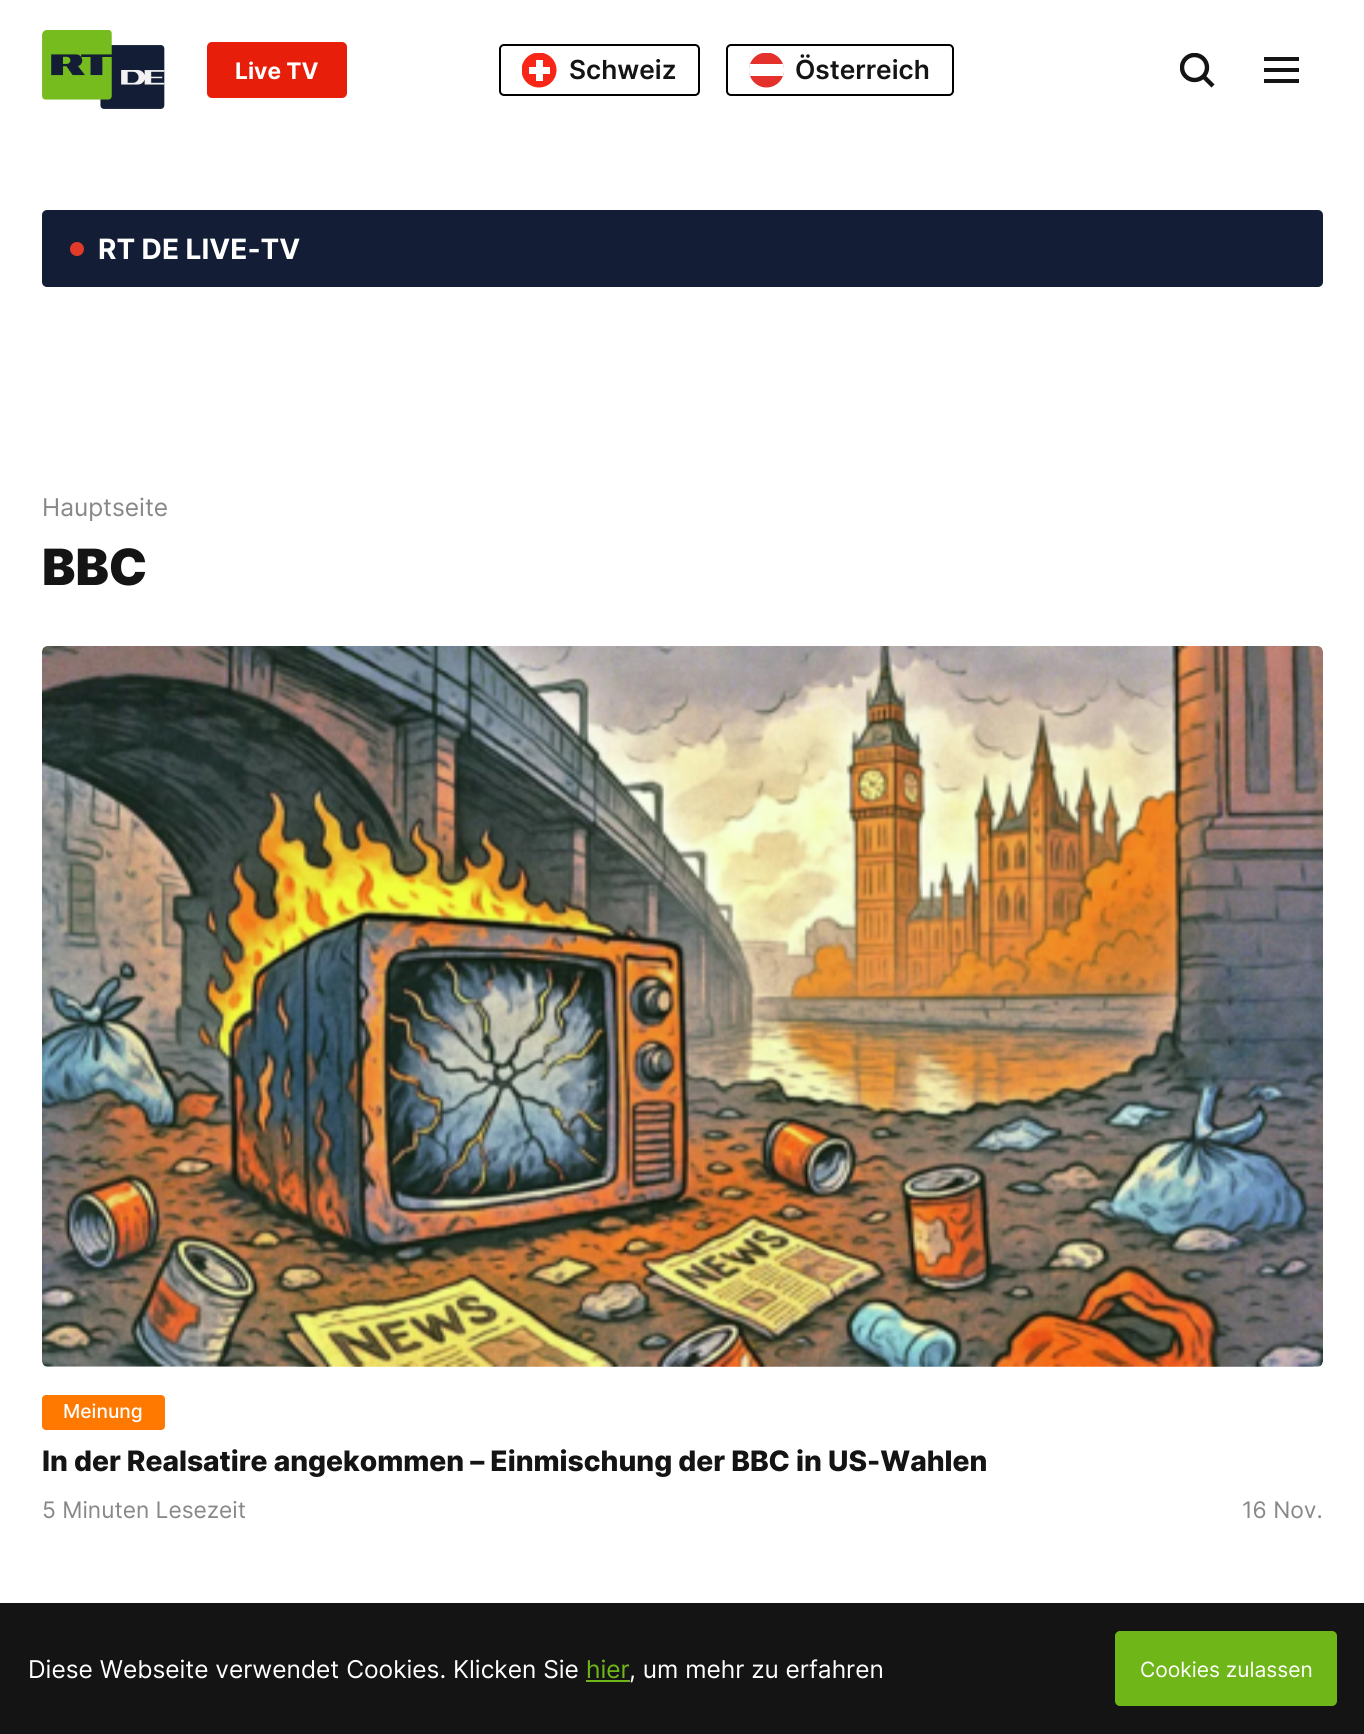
import math
import cairo

surface = cairo.ImageSurface(cairo.FORMAT_RGB24, 1364, 1734)
c = cairo.Context(surface)
options = cairo.FontOptions()
options.set_hint_metrics(cairo.HINT_METRICS_OFF)
options.set_hint_style(cairo.HINT_STYLE_NONE)
c.set_font_options(options)
c.set_miter_limit(4)
def C(code):
 c.set_source_rgb(*(v / 255 for v in bytes.fromhex(code[-6:])))
def F(family, size, italic, bold):
 c.select_font_face(family, cairo.FONT_SLANT_ITALIC if italic else cairo.FONT_SLANT_NORMAL, cairo.FONT_WEIGHT_BOLD if bold else cairo.FONT_WEIGHT_NORMAL)
 c.set_font_size(size)
def T(x, y, s):
 c.move_to(x, y)
 c.show_text(s)
def R(x, y, w, h):
 c.rectangle(x, y, w, h)
 c.fill()
def Q(x, y, w, h, r):
 c.new_sub_path()
 for i, (u, v) in enumerate([(x + w - r, y + h - r), (x + r, y + h - r), (x + r, y + r), (x + w - r, y + r)]):
  c.arc(u, v, r, i * math.pi / 2, (i + 1) * math.pi / 2)
 c.close_path()
def I(path, x, y, w, h):
 c.save()
 c.set_source_surface(cairo.ImageSurface.create_from_png(path), x, y)
 c.rectangle(x, y, w, h)
 c.fill()
 c.restore()
C('ffffff')
c.paint()
I('1.png',42,30,123,79)
C('e61e0a')
Q(207,42,140,56,5)
c.fill()
F('Inter',22.75,0,1)
C('ffffff')
T(235,79,'Live TV')
Q(500,45,199,50,4)
C('000000')
c.stroke()
c.save()
c.rectangle(522,53,35,35)
c.clip()
C('f72617')
c.arc(539,70,17.5,0,2 * math.pi)
c.fill()
c.restore()
C('ffffff')
R(536,60,7,21)
R(529,67,21,7)
F('Inter SemiBold',26.25,0,0)
C('141414')
T(569,79,'Schweiz')
Q(727,45,226,50,4)
C('000000')
c.stroke()
c.save()
c.rectangle(749,53,35,35)
c.clip()
C('e4312b')
c.arc(766.5,70,17.5,0,2 * math.pi)
c.fill()
C('ffffff')
c.new_path()
c.move_to(750,76)
c.curve_to(748.5,72,748.5,68,750,64)
c.line_to(783,64)
c.curve_to(784.5,68,784.5,72,783,76)
c.close_path()
c.fill()
c.restore()
C('141414')
T(795,79,'Österreich')
c.save()
c.rectangle(1180,53,35,35)
c.clip()
c.arc(1194.5,67.5,12.5,0,2 * math.pi)
c.set_line_width(4.4)
c.stroke()
c.restore()
c.new_path()
c.move_to(1203.5,76.5)
c.line_to(1213,86)
c.set_line_width(4.4)
c.stroke()
R(1264,57,35,4)
R(1264,68,35,4)
R(1264,79,35,4)
C('131d36')
Q(42,210,1281,77,5)
c.fill()
C('e13a28')
c.arc(77,249,7,0,2 * math.pi)
c.fill()
F('Inter',28,0,1)
C('ffffff')
T(98,259,'RT DE LIVE-TV')
F('Inter',24.5,0,0)
C('888888')
T(42,516,'Hauptseite')
F('Inter Black',50,0,0)
C('141414')
T(42,585,'BBC')
I('2.png',42,646,1281,721)
C('ff7800')
Q(42,1395,123,35,4)
c.fill()
F('Inter Medium',19.25,0,0)
C('ffffff')
T(63,1418,'Meinung')
F('Inter ExtraBold',28.15,0,0)
C('141414')
T(42,1471,'In der Realsatire angekommen – Einmischung der BBC in US-Wahlen')
F('Inter',22.75,0,0)
C('888888')
T(42,1518,'5 Minuten Lesezeit')
T(1242,1518,'16 Nov.')
C('141414')
R(0,1603,1364,131)
F('Inter',24.5,0,0)
C('ffffff')
T(28,1678,'Diese Webseite verwendet Cookies. Klicken Sie')
C('6fb719')
T(586,1678,'hier')
R(586,1680,44,2)
C('ffffff')
T(629,1678,', um mehr zu erfahren')
C('6fb719')
Q(1115,1631,222,75,5)
c.fill()
F('Inter',21,0,0)
C('ffffff')
T(1140,1677,'Cookies zulassen')
surface.write_to_png('o.png')
